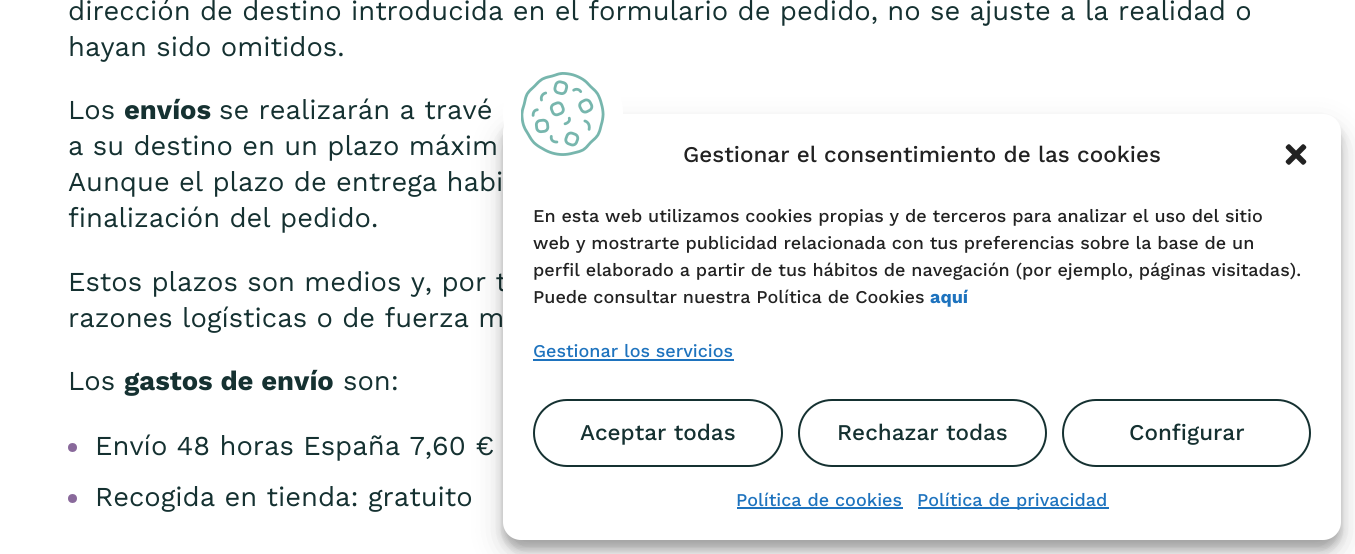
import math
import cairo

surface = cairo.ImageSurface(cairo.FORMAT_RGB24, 1355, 554)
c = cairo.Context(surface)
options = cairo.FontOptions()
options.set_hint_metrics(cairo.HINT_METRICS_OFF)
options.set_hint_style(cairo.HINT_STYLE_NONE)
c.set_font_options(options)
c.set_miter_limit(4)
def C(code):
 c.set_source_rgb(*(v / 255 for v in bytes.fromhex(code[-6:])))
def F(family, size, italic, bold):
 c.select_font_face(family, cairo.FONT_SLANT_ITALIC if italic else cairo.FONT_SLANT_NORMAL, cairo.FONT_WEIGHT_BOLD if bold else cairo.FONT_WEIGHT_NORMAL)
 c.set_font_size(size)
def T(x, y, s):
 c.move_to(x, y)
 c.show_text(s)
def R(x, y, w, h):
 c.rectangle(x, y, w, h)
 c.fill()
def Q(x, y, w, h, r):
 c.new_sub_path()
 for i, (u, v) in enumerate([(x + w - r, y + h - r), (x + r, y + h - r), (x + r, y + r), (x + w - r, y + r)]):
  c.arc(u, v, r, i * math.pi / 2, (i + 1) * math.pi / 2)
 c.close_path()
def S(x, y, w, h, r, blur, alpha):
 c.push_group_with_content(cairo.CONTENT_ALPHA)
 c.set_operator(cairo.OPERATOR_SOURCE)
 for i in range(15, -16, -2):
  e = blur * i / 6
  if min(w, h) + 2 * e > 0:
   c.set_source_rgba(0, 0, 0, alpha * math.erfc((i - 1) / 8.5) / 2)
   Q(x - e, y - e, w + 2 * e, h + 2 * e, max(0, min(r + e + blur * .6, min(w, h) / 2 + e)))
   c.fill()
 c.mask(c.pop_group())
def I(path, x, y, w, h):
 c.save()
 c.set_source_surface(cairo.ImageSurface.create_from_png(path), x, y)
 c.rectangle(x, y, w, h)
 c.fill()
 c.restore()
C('ffffff')
c.paint()
F('Work Sans',27.35,0,0)
C('153131')
T(68,20,'dirección de destino introducida en el formulario de pedido, no se ajuste a la realidad o')
T(68,56,'hayan sido omitidos.')
T(68,119,'Los')
F('Work Sans',27.35,0,1)
T(124,119,'envíos')
F('Work Sans',27.35,0,0)
T(219,119,'se realizarán a travé')
T(68,155,'a su destino en un plazo máxim')
T(68,191,'Aunque el plazo de entrega habi')
T(68,227,'finalización del pedido.')
T(68,291,'Estos plazos son medios y, por t')
T(68,327,'razones logísticas o de fuerza m')
T(68,390,'Los')
F('Work Sans',27.35,0,1)
T(124,390,'gastos de envío')
F('Work Sans',27.35,0,0)
T(343,390,'son:')
C('89699b')
c.new_path()
c.arc(72.5,447.5,4.5,0,2 * math.pi)
c.fill()
C('153131')
T(95,455,'Envío 48 horas España 7,60 €')
C('89699b')
c.new_path()
c.arc(72.5,498.5,4.5,0,2 * math.pi)
c.fill()
C('153131')
T(95,506,'Recogida en tienda: gratuito')
C('000000')
S(503,123,838,426,18,4.5,.23)
S(503,129,838,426,18,15,.19)
C('ffffff')
Q(503,114,838,426,18)
c.fill()
c.arc(563,114,60,0,2 * math.pi)
c.fill()
I('1.png',521,72,84,84)
F('Work Sans Medium',22.5,0,0)
C('222222')
T(683,162,'Gestionar el consentimiento de las cookies')
I('2.png',1285,144,22,21)
F('Work Sans Medium',18,0,0)
T(533,222,'En esta web utilizamos cookies propias y de terceros para analizar el uso del sitio')
T(533,249,'web y mostrarte publicidad relacionada con tus preferencias sobre la base de un')
T(533,276,'perfil elaborado a partir de tus hábitos de navegación (por ejemplo, páginas visitadas).')
T(533,303,'Puede consultar nuestra Política de Cookies')
F('Work Sans',18,0,1)
C('1e73be')
T(930,303,'aquí')
F('Work Sans Medium',18,0,0)
T(533,357,'Gestionar los servicios')
R(533,359,201,2)
Q(534,400,248,66,33)
C('153131')
c.stroke()
F('Work Sans Medium',22.5,0,0)
T(580,440,'Aceptar todas')
Q(799,400,247,66,33)
c.stroke()
T(837,440,'Rechazar todas')
Q(1063,400,247,66,33)
c.stroke()
T(1129,440,'Configurar')
F('Work Sans Medium',18,0,0)
C('1e73be')
T(736,506,'Política de cookies')
R(737,507,166,2)
R(918,507,191,2)
T(917,506,'Política de privacidad')
surface.write_to_png('o.png')
